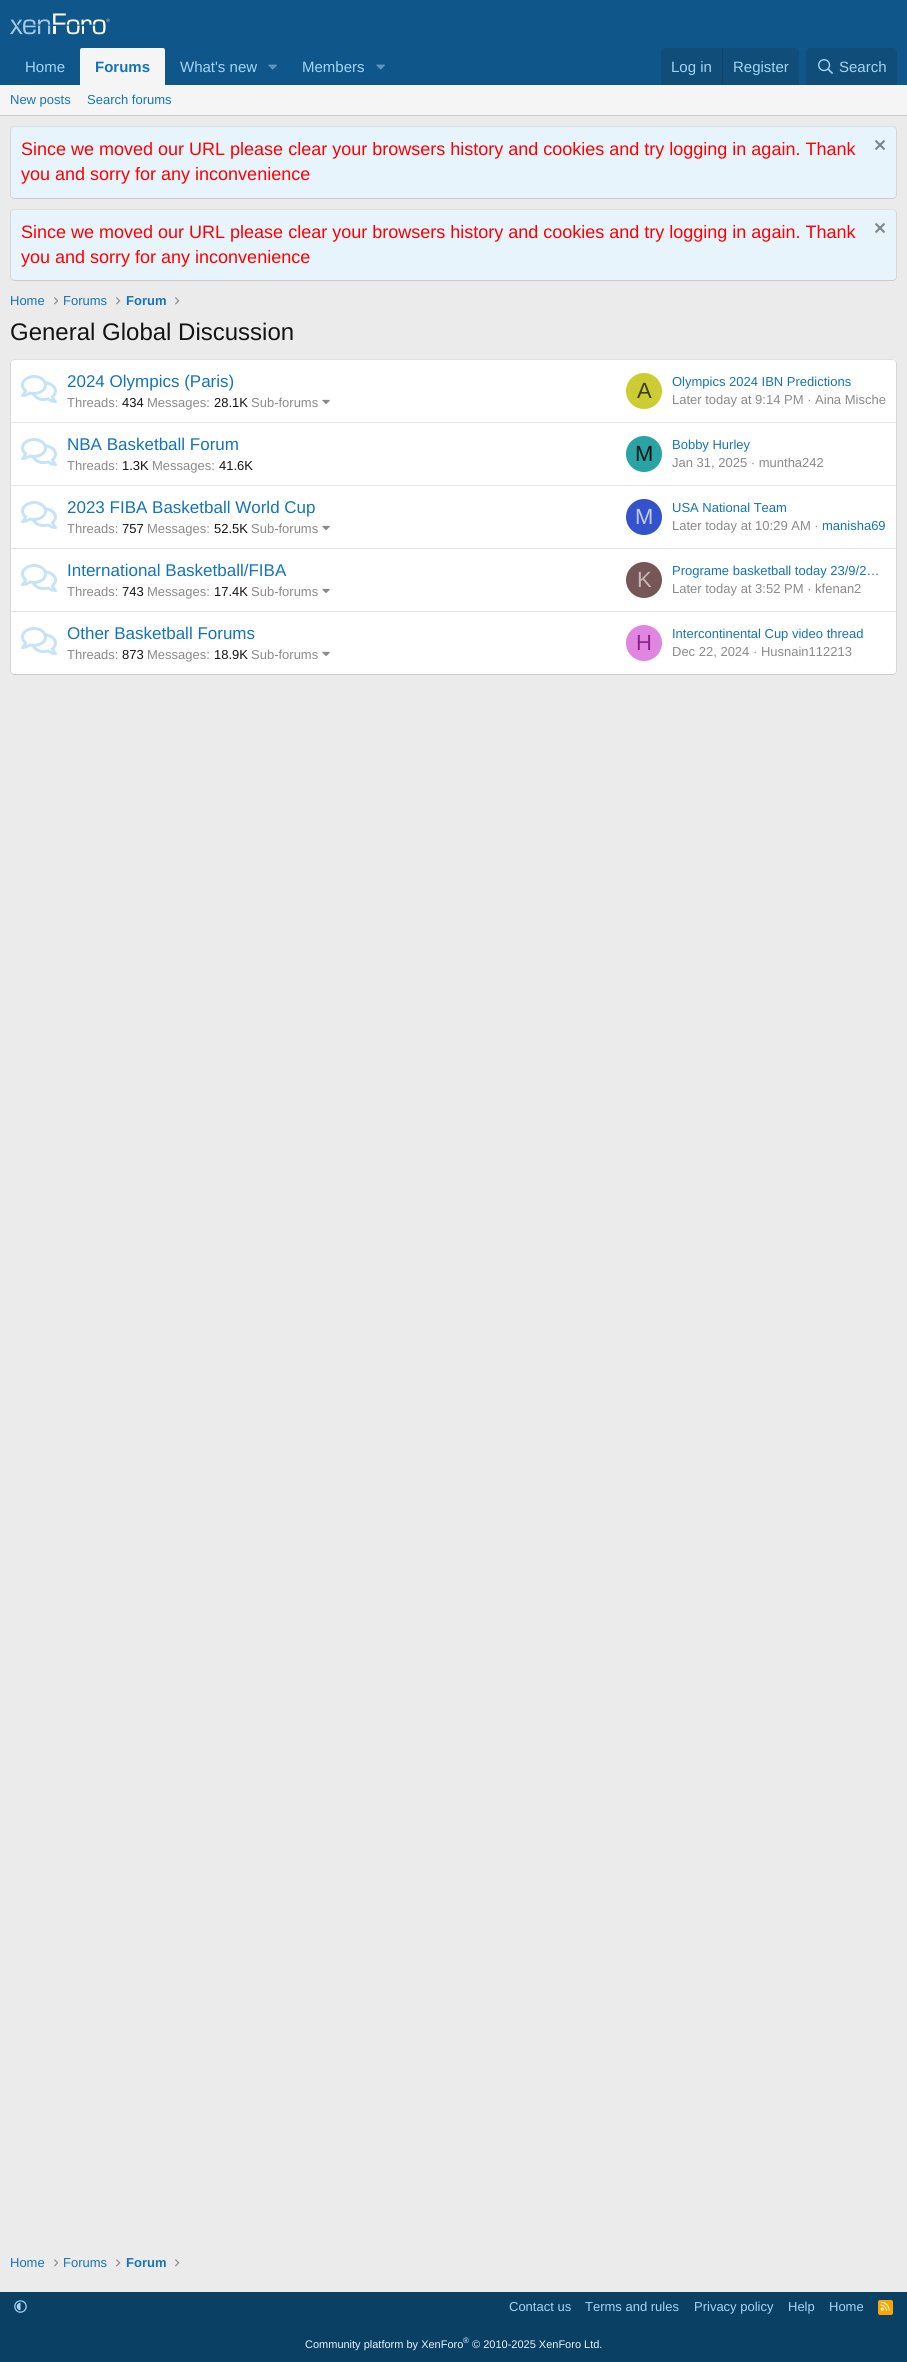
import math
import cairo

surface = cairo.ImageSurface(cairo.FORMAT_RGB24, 907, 2362)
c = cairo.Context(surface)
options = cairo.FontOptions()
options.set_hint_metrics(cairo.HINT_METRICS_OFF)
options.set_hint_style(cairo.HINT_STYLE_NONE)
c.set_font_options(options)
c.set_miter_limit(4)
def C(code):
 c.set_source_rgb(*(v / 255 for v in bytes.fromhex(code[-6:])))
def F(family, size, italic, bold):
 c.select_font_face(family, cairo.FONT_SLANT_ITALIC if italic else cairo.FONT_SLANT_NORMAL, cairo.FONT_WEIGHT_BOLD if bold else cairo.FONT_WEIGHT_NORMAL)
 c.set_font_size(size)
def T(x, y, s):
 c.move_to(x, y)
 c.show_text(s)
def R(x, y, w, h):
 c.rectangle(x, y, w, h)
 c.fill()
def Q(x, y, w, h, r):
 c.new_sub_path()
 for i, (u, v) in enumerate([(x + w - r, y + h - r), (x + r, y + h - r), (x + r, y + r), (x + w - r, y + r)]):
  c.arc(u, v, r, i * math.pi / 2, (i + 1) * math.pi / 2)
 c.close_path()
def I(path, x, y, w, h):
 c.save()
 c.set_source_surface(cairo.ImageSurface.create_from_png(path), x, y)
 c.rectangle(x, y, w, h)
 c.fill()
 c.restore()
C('ebebeb')
c.paint()
C('0f578a')
R(0,0,907,85)
I('1.png',10,13,100,22)
F('Liberation Sans',15,0,0)
C('a3d4f5')
T(25,72,'Home')
C('f5f5f5')
c.new_path()
c.move_to(82,48)
c.line_to(163,48)
c.curve_to(164,48,165,49,165,50)
c.line_to(165,85)
c.line_to(80,85)
c.line_to(80,50)
c.curve_to(80,49,81,48,82,48)
c.close_path()
c.fill()
F('Liberation Sans',15,0,1)
C('1474b8')
T(95,72,'Forums')
F('Liberation Sans',15,0,0)
C('a3d4f5')
T(180,72,'What\'s new')
I('2.png',268,64,9,6)
T(302,72,'Members')
I('2.png',376,64,9,6)
C('104d78')
c.new_path()
c.move_to(665,48)
c.line_to(795,48)
c.curve_to(797,48,799,50,799,52)
c.line_to(799,85)
c.line_to(661,85)
c.line_to(661,52)
c.curve_to(661,50,663,48,665,48)
c.close_path()
c.fill()
C('a3d4f5')
T(671,72,'Log in')
C('114469')
R(722,48,1,37)
C('a3d4f5')
T(733,72,'Register')
C('104d78')
c.new_path()
c.move_to(810,48)
c.line_to(893,48)
c.curve_to(895,48,897,50,897,52)
c.line_to(897,85)
c.line_to(806,85)
c.line_to(806,52)
c.curve_to(806,50,808,48,810,48)
c.close_path()
c.fill()
I('3.png',818,59,15,15)
C('a3d4f5')
T(839,72,'Search')
C('f5f5f5')
R(0,85,907,30)
C('cccccc')
R(0,115,907,1)
F('Liberation Sans',13,0,0)
C('1474b8')
T(10,104,'New posts')
T(87,104,'Search forums')
C('e8f4fc')
Q(10,126,887,73,4)
c.fill()
c.new_path()
c.move_to(11.5,127.5)
c.line_to(14,126.5)
c.line_to(893,126.5)
c.line_to(895.5,127.5)
C('e0e0e0')
c.set_line_width(1)
c.stroke()
c.new_path()
c.move_to(895.5,127.5)
c.line_to(896.5,129.5)
c.line_to(896.5,195.5)
c.line_to(895.5,197.5)
C('d6d6d6')
c.stroke()
c.new_path()
c.move_to(895.5,197.5)
c.line_to(893,198.5)
c.line_to(14,198.5)
c.line_to(11.5,197.5)
C('cccccc')
c.stroke()
c.new_path()
c.move_to(11.5,197.5)
c.line_to(10.5,195.5)
c.line_to(10.5,129.5)
c.line_to(11.5,127.5)
C('d6d6d6')
c.stroke()
F('Liberation Sans',18,0,0)
C('ff0000')
T(21,155,'Since we moved our URL please clear your browsers history and cookies and try logging in again. Thank')
I('4.png',875,140,10,10)
T(21,180,'you and sorry for any inconvenience')
C('e8f4fc')
Q(10,209,887,72,4)
c.fill()
c.new_path()
c.move_to(11.5,210.5)
c.line_to(14,209.5)
c.line_to(893,209.5)
c.line_to(895.5,210.5)
C('e0e0e0')
c.stroke()
c.new_path()
c.move_to(895.5,210.5)
c.line_to(896.5,212.5)
c.line_to(896.5,277.5)
c.line_to(895.5,279.5)
C('d6d6d6')
c.stroke()
c.new_path()
c.move_to(895.5,279.5)
c.line_to(893,280.5)
c.line_to(14,280.5)
c.line_to(11.5,279.5)
C('cccccc')
c.stroke()
c.new_path()
c.move_to(11.5,279.5)
c.line_to(10.5,277.5)
c.line_to(10.5,212.5)
c.line_to(11.5,210.5)
C('d6d6d6')
c.stroke()
C('ff0000')
T(21,238,'Since we moved our URL please clear your browsers history and cookies and try logging in again. Thank')
I('4.png',875,223,10,10)
T(21,263,'you and sorry for any inconvenience')
F('Liberation Sans',13,0,0)
C('1474b8')
T(10,305,'Home')
I('5.png',54,297,4,8)
T(63,305,'Forums')
I('6.png',116,297,5,8)
F('Liberation Sans',13,0,1)
T(126,305,'Forum')
I('6.png',175,297,5,8)
F('Liberation Sans',24,0,0)
C('141414')
T(10,340,'General Global Discussion')
C('ffffff')
Q(10,359,887,316,4)
c.fill()
c.new_path()
c.move_to(11.5,360.5)
c.line_to(14,359.5)
c.line_to(893,359.5)
c.line_to(895.5,360.5)
C('e0e0e0')
c.stroke()
c.new_path()
c.move_to(895.5,360.5)
c.line_to(896.5,363)
c.line_to(896.5,671)
c.line_to(895.5,673.5)
C('d6d6d6')
c.stroke()
c.new_path()
c.move_to(895.5,673.5)
c.line_to(893,674.5)
c.line_to(14,674.5)
c.line_to(11.5,673.5)
C('cccccc')
c.stroke()
c.new_path()
c.move_to(11.5,673.5)
c.line_to(10.5,671)
c.line_to(10.5,363)
c.line_to(11.5,360.5)
C('d6d6d6')
c.stroke()
I('7.png',21,375,36,28)
F('Liberation Sans',17,0,0)
C('1474b8')
T(67,387,'2024 Olympics (Paris)')
F('Liberation Sans',13,0,0)
C('8a8a8a')
T(67,407,'Threads:')
C('141414')
T(122,407,'434')
C('8a8a8a')
T(147,407,'Messages:')
C('141414')
T(214,407,'28.1K')
C('8a8a8a')
T(251,407,'Sub-forums')
I('8.png',322,399,8,6)
C('cccc33')
c.arc(644,391,18,0,2 * math.pi)
c.fill()
F('Liberation Sans',22,0,0)
C('3d3d0f')
T(637,398,'A')
F('Liberation Sans',13,0,0)
C('1474b8')
T(672,386,'Olympics 2024 IBN Predictions')
C('8a8a8a')
T(672,404,'Later today at 9:14 PM · Aina Mische')
C('e6e6e6')
R(11,422,885,1)
I('7.png',21,438,36,28)
F('Liberation Sans',17,0,0)
C('1474b8')
T(67,450,'NBA Basketball Forum')
F('Liberation Sans',13,0,0)
C('8a8a8a')
T(67,470,'Threads:')
C('141414')
T(122,470,'1.3K')
C('8a8a8a')
T(152,470,'Messages:')
C('141414')
T(219,470,'41.6K')
C('29a3a3')
c.new_path()
c.arc(644,454,18,0,2 * math.pi)
c.fill()
F('Liberation Sans',22,0,0)
C('051414')
T(635,461,'M')
F('Liberation Sans',13,0,0)
C('1474b8')
T(672,449,'Bobby Hurley')
C('8a8a8a')
T(672,467,'Jan 31, 2025 · muntha242')
C('e6e6e6')
R(11,485,885,1)
I('9.png',21,501,36,28)
F('Liberation Sans',17,0,0)
C('1474b8')
T(67,513,'2023 FIBA Basketball World Cup')
F('Liberation Sans',13,0,0)
C('8a8a8a')
T(67,533,'Threads:')
C('141414')
T(122,533,'757')
C('8a8a8a')
T(147,533,'Messages:')
C('141414')
T(214,533,'52.5K')
C('8a8a8a')
T(251,533,'Sub-forums')
I('8.png',322,525,8,6)
C('3352cc')
c.arc(644,517,18,0,2 * math.pi)
c.fill()
F('Liberation Sans',22,0,0)
C('c2cbf0')
T(635,524,'M')
F('Liberation Sans',13,0,0)
C('1474b8')
T(672,512,'USA National Team')
C('8a8a8a')
T(672,530,'Later today at 10:29 AM ·')
C('1474b8')
T(822,530,'manisha69')
C('e6e6e6')
R(11,548,885,1)
I('7.png',21,564,36,28)
F('Liberation Sans',17,0,0)
C('1474b8')
T(67,576,'International Basketball/FIBA')
F('Liberation Sans',13,0,0)
C('8a8a8a')
T(67,596,'Threads:')
C('141414')
T(122,596,'743')
C('8a8a8a')
T(147,596,'Messages:')
C('141414')
T(214,596,'17.4K')
C('8a8a8a')
T(251,596,'Sub-forums')
I('8.png',322,588,8,6)
C('755757')
c.arc(644,580,18,0,2 * math.pi)
c.fill()
F('Liberation Sans',22,0,0)
C('c9b6b6')
T(637,587,'K')
F('Liberation Sans',13,0,0)
C('1474b8')
T(672,575,'Programe basketball today 23/9/2…')
C('8a8a8a')
T(672,593,'Later today at 3:52 PM · kfenan2')
C('e6e6e6')
R(11,611,885,1)
I('7.png',21,627,36,28)
F('Liberation Sans',17,0,0)
C('1474b8')
T(67,639,'Other Basketball Forums')
F('Liberation Sans',13,0,0)
C('8a8a8a')
T(67,659,'Threads:')
C('141414')
T(122,659,'873')
C('8a8a8a')
T(147,659,'Messages:')
C('141414')
T(214,659,'18.9K')
C('8a8a8a')
T(251,659,'Sub-forums')
I('8.png',322,651,8,6)
C('e085e0')
c.arc(644,643,18,0,2 * math.pi)
c.fill()
F('Liberation Sans',22,0,0)
C('8f248f')
T(636,650,'H')
F('Liberation Sans',13,0,0)
C('1474b8')
T(672,638,'Intercontinental Cup video thread')
C('8a8a8a')
T(672,656,'Dec 22, 2024 · Husnain112213')
C('1474b8')
T(10,2267,'Home')
I('5.png',54,2259,4,8)
T(63,2267,'Forums')
I('6.png',116,2259,5,8)
F('Liberation Sans',13,0,1)
T(126,2267,'Forum')
I('6.png',175,2259,5,8)
C('0b4065')
R(0,2292,907,70)
I('10.png',14,2300,13,13)
F('Liberation Sans',13,0,0)
C('a3d4f5')
T(509,2311,'Contact us')
T(585,2311,'Terms and rules')
T(694,2311,'Privacy policy')
T(788,2311,'Help')
T(829,2311,'Home')
C('ffa500')
Q(878,2300,15,15,2)
c.fill()
I('11.png',880,2301,10,10)
F('Liberation Sans',11,0,0)
C('e8f4fc')
T(305,2348,'Community platform by XenForo')
F('Liberation Sans',8,0,0)
T(463,2343,'®')
F('Liberation Sans',11,0,0)
T(472,2348,'© 2010-2025 XenForo Ltd.')
surface.write_to_png('o.png')
